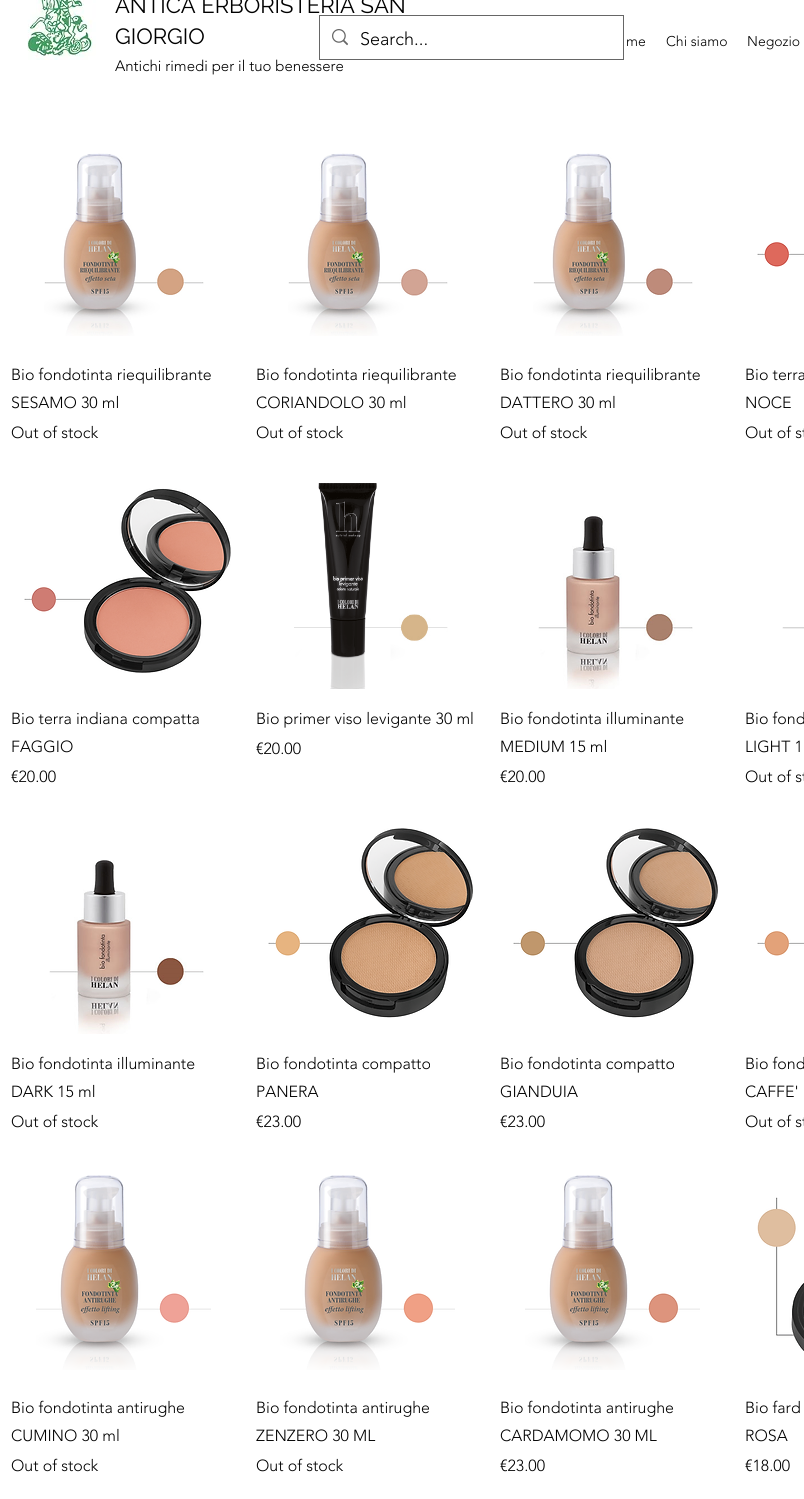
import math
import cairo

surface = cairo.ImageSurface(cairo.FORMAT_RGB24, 804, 1499)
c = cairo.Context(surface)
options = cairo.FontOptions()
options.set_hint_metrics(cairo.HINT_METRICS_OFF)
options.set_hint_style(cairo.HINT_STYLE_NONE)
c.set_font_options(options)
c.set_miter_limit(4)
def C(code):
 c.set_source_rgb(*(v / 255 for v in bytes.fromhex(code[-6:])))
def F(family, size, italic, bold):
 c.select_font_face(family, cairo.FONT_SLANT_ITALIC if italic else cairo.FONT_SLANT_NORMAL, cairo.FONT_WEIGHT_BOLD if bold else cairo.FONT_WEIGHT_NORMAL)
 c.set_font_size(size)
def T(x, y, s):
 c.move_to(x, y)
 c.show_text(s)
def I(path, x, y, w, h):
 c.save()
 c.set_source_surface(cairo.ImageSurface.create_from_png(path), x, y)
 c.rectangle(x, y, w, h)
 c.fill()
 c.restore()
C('ffffff')
c.paint()
I('1.png',27,0,69,60)
F('Raleway',22,0,0)
C('000000')
T(115,13,'ANTICA ERBORISTERIA SAN')
T(115,44,'GIORGIO')
F('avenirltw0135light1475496 Light',15,0,0)
T(115,71,'Antichi rimedi per il tuo benessere')
F('avenirltw0135light1475496 Light',14,0,0)
T(626,46,'me')
T(666,46,'Chi siamo')
T(747,46,'Negozio')
c.rectangle(319.5,15.5,304,44)
c.set_source_rgba(0,0,0,0.6)
c.set_line_width(1)
c.stroke()
I('2.png',332,29,16,17)
F('avenirltw0135light1475496 Light',18,0,0)
C('000000')
T(360,45,'Search...')
I('3.png',44,153,160,183)
F('avenirltw0135light1475496 Light',16,0,0)
T(11,380,'Bio fondotinta riequilibrante')
T(11,408,'SESAMO 30 ml')
T(11,438,'Out of stock')
I('4.png',288,153,160,183)
T(256,380,'Bio fondotinta riequilibrante')
T(256,408,'CORIANDOLO 30 ml')
T(256,438,'Out of stock')
I('5.png',533,153,160,183)
T(500,380,'Bio fondotinta riequilibrante')
T(500,408,'DATTERO 30 ml')
T(500,438,'Out of stock')
I('6.png',757,242,47,25)
T(745,380,'Bio terra')
T(745,408,'NOCE')
T(745,438,'Out of st')
I('7.png',24,488,207,185)
T(11,724,'Bio terra indiana compatta')
T(11,752,'FAGGIO')
T(11,782,'€20.00')
I('8.png',294,483,154,206)
T(256,724,'Bio primer viso levigante 30 ml')
T(256,754,'€20.00')
I('9.png',538,516,155,173)
T(500,724,'Bio fondotinta illuminante')
T(500,752,'MEDIUM 15 ml')
T(500,782,'€20.00')
I('10.png',782,627,22,2)
T(745,724,'Bio fond')
T(745,752,'LIGHT 1')
T(745,782,'Out of st')
I('11.png',49,860,155,174)
T(11,1069,'Bio fondotinta illuminante')
T(11,1097,'DARK 15 ml')
T(11,1127,'Out of stock')
I('12.png',268,828,205,190)
T(256,1069,'Bio fondotinta compatto')
T(256,1097,'PANERA')
T(256,1127,'€23.00')
I('13.png',513,828,205,190)
T(500,1069,'Bio fondotinta compatto')
T(500,1097,'GIANDUIA')
T(500,1127,'€23.00')
I('14.png',757,931,47,25)
T(745,1069,'Bio fond')
T(745,1097,'CAFFE\'')
T(745,1127,'Out of st')
I('15.png',36,1175,175,195)
T(11,1413,'Bio fondotinta antirughe')
T(11,1441,'CUMINO 30 ml')
T(11,1471,'Out of stock')
I('16.png',280,1175,175,195)
T(256,1413,'Bio fondotinta antirughe')
T(256,1441,'ZENZERO 30 ML')
T(256,1471,'Out of stock')
I('17.png',525,1175,175,195)
T(500,1413,'Bio fondotinta antirughe')
T(500,1441,'CARDAMOMO 30 ML')
T(500,1471,'€23.00')
I('18.png',757,1197,47,154)
T(745,1413,'Bio fard')
T(745,1441,'ROSA')
T(745,1471,'€18.00')
surface.write_to_png('o.png')
